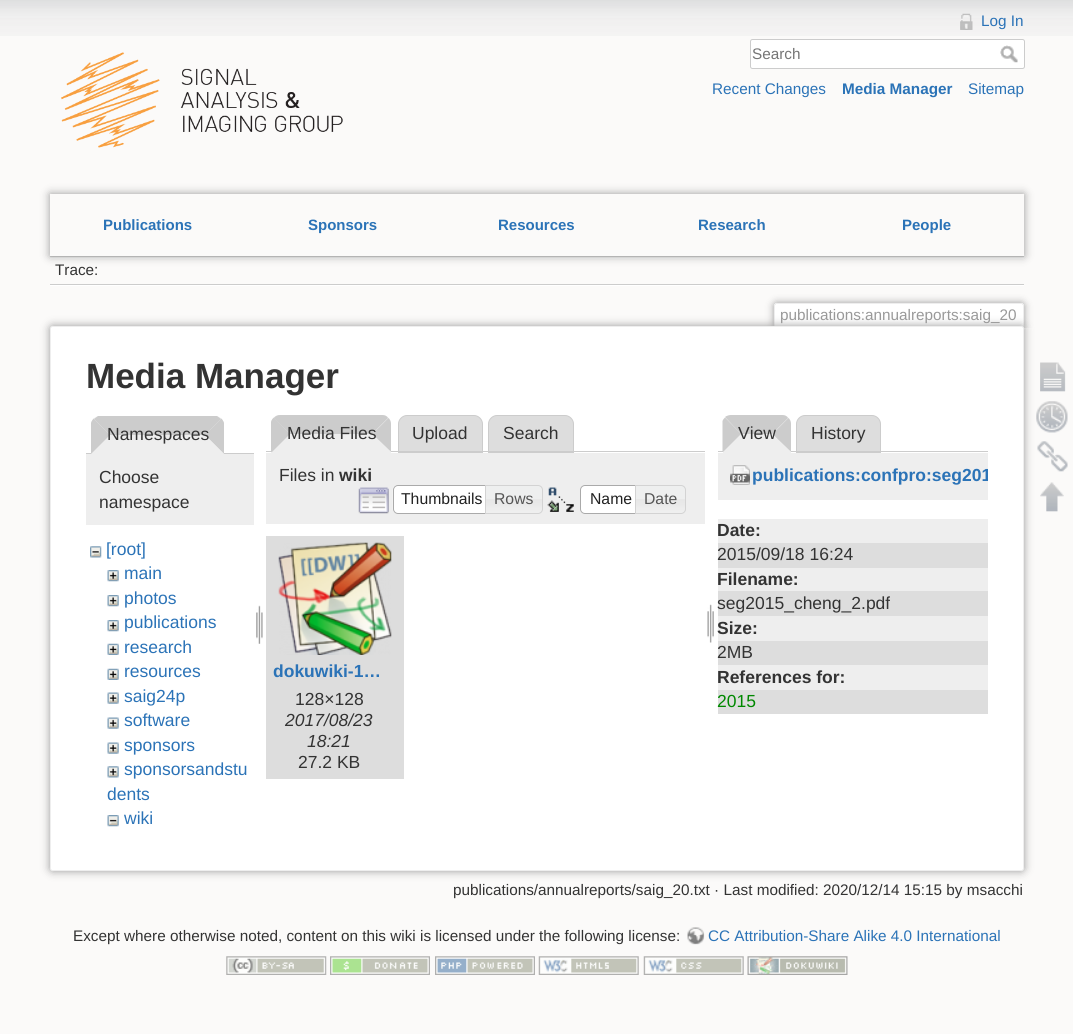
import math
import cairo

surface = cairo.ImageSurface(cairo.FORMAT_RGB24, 1073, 1034)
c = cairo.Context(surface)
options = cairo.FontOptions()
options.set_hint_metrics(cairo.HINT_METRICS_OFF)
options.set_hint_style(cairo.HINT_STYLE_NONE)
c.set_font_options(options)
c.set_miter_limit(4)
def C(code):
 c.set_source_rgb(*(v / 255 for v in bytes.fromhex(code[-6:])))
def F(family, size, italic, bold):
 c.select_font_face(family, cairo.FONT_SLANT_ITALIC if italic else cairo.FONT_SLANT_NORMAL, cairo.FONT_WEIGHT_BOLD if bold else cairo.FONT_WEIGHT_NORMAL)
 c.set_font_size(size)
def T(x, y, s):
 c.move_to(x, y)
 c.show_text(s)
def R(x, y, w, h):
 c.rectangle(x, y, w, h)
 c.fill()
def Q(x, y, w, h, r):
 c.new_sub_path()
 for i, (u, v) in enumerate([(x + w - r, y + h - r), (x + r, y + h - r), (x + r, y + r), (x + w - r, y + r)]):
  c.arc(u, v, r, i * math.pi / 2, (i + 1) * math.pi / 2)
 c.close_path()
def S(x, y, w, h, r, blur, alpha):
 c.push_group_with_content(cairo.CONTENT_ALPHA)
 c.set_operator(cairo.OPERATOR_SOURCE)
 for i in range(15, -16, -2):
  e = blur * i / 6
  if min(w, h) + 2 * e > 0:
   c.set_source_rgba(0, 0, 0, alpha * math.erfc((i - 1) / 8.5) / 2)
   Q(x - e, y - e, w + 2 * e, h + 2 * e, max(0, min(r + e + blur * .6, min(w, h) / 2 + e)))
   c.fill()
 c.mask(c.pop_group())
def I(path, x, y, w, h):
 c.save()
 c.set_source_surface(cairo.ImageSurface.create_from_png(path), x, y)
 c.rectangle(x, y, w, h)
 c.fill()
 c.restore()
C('fbfaf9')
c.paint()
I('1.png',0,0,1073,36)
I('2.png',61,52,282,96)
I('3.png',960,13,13,17)
F('Liberation Sans',15.3,0,0)
C('2b73b7')
T(981,26,'Log In')
C('ffffff')
Q(750.5,39.5,274,29,2)
c.fill_preserve()
C('cccccc')
c.set_line_width(1)
c.stroke()
C('757575')
T(752,59,'Search')
I('4.png',1000,45,18,18)
C('2b73b7')
T(712,94,'Recent Changes')
F('Liberation Sans',15.3,0,1)
T(842,94,'Media Manager')
F('Liberation Sans',15.3,0,0)
T(968,94,'Sitemap')
C('cccccc')
R(50,256,974,1)
C('ffffff')
R(50,258,974,1)
c.save()
c.set_fill_rule(cairo.FILL_RULE_EVEN_ODD)
c.new_path()
c.move_to(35,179)
c.line_to(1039,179)
c.line_to(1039,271)
c.line_to(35,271)
c.close_path()
c.move_to(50,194)
c.line_to(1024,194)
c.line_to(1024,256)
c.line_to(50,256)
c.close_path()
c.clip()
C('999999')
S(50,194,974,62,0,4.5,1)
c.restore()
F('Liberation Sans',15,0,1)
C('2b73b7')
T(103,230,'Publications')
T(308,230,'Sponsors')
T(498,230,'Resources')
T(698,230,'Research')
T(902,230,'People')
C('ffffff')
R(50,285,974,1)
C('cccccc')
R(50,284,974,1)
F('Liberation Sans',15.3,0,0)
C('333333')
T(55,275,'Trace:')
c.save()
c.rectangle(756,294,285,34)
c.clip()
C('999999')
S(774,303,250,25,2.5,4,1)
c.restore()
C('ffffff')
c.new_path()
c.move_to(776,304)
c.line_to(1022,304)
c.curve_to(1022.5,304,1023,304.5,1023,305)
c.line_to(1023,328)
c.line_to(775,328)
c.line_to(775,305)
c.curve_to(775,304.5,775.5,304,776,304)
c.close_path()
c.fill()
C('eeeeee')
R(775,303,248,1)
R(1023,304,1,24)
R(774,304,1,24)
C('999999')
T(780,320,'publications:annualreports:saig_20')
C('999999')
S(50,326,974,545,2.5,4.5,1)
C('ffffff')
Q(50.5,326.5,973,544,2)
c.fill_preserve()
C('eeeeee')
c.stroke()
F('Liberation Sans',35,0,1)
C('333333')
T(86,388,'Media Manager')
C('cccccc')
R(86,453,168,1)
C('eeeeee')
c.new_path()
c.move_to(100,416)
c.line_to(215,416)
c.curve_to(220,416,224,420,224,425)
c.line_to(224,454)
c.line_to(91,454)
c.line_to(91,425)
c.curve_to(91,420,95,416,100,416)
c.close_path()
c.fill()
C('cccccc')
c.new_path()
c.move_to(217,416)
c.line_to(98,416)
c.line_to(94,419)
c.line_to(110,435)
c.line_to(205,435)
c.line_to(221,419)
c.close_path()
c.fill()
c.new_path()
c.move_to(221.5,418.5)
c.line_to(205,435)
c.line_to(224,454)
c.line_to(224,423)
c.curve_to(223.5,421,222.5,420,221.5,418.5)
c.close_path()
c.fill()
C('eeeeee')
c.new_path()
c.move_to(224,454)
c.line_to(205,435)
c.line_to(110,435)
c.line_to(91,454)
c.close_path()
c.fill()
C('cccccc')
c.new_path()
c.move_to(91,454)
c.line_to(110,435)
c.line_to(93.5,418.5)
c.curve_to(92.5,420,91.5,421,91,423)
c.close_path()
c.fill()
F('Liberation Sans',17.5,0,0)
C('333333')
T(107,440,'Namespaces')
C('eeeeee')
R(86,454,168,71)
C('333333')
T(99,483,'Choose')
T(99,508,'namespace')
I('5.png',90,546,12,12)
C('2b73b7')
T(106,555,'[root]')
I('6.png',107,570,12,12)
T(124,579,'main')
I('6.png',107,595,12,12)
T(124,604,'photos')
I('6.png',107,620,12,12)
T(124,628,'publications')
I('7.png',107,643,12,12)
T(124,653,'research')
I('7.png',107,668,12,12)
T(124,677,'resources')
I('8.png',107,692,12,12)
T(124,702,'saig24p')
I('8.png',107,717,12,12)
T(124,726,'software')
I('8.png',107,742,12,12)
T(124,751,'sponsors')
I('9.png',107,766,12,12)
T(124,775,'sponsorsandstu')
T(107,800,'dents')
I('10.png',107,815,12,12)
T(124,824,'wiki')
I('11.png',256,605,7,39)
C('dddddd')
c.new_path()
c.move_to(407,415.5)
c.line_to(474,415.5)
c.curve_to(478.5,415.5,482.5,419.5,482.5,424)
c.line_to(482.5,452.5)
c.line_to(398.5,452.5)
c.line_to(398.5,424)
c.curve_to(398.5,419.5,402.5,415.5,407,415.5)
c.close_path()
c.fill_preserve()
C('cccccc')
c.stroke()
C('dddddd')
c.new_path()
c.move_to(497,415.5)
c.line_to(565,415.5)
c.curve_to(569.5,415.5,573.5,419.5,573.5,424)
c.line_to(573.5,452.5)
c.line_to(488.5,452.5)
c.line_to(488.5,424)
c.curve_to(488.5,419.5,492.5,415.5,497,415.5)
c.close_path()
c.fill_preserve()
C('cccccc')
c.stroke()
R(266,451,439,1)
C('eeeeee')
c.new_path()
c.move_to(280,415)
c.line_to(382,415)
c.curve_to(387,415,391,419,391,424)
c.line_to(391,453)
c.line_to(271,453)
c.line_to(271,424)
c.curve_to(271,419,275,415,280,415)
c.close_path()
c.fill()
C('cccccc')
c.new_path()
c.move_to(280,415)
c.line_to(382,415)
c.curve_to(385,415,387,416,388,418)
c.line_to(372,434)
c.line_to(290,434)
c.line_to(274,418)
c.curve_to(275,416,278,415,280,415)
c.close_path()
c.fill()
c.new_path()
c.move_to(388.5,418)
c.line_to(372.5,434)
c.line_to(391,452)
c.line_to(391,424)
c.curve_to(391,421.5,390,419.5,388.5,418)
c.close_path()
c.fill()
C('eeeeee')
c.new_path()
c.move_to(391,452)
c.line_to(372,434)
c.line_to(290,434)
c.line_to(272,452)
c.close_path()
c.fill()
C('cccccc')
c.new_path()
c.move_to(272,452)
c.line_to(290,434)
c.line_to(274,417.5)
c.curve_to(272.5,418.5,271.5,420,271,422)
c.line_to(271,452)
c.close_path()
c.fill()
C('333333')
T(287,439,'Media Files')
T(412,439,'Upload')
T(503,439,'Search')
C('eeeeee')
R(266,453,439,71)
C('333333')
T(279,481,'Files in')
F('Liberation Sans',17.5,0,1)
T(339,481,'wiki')
I('12.png',358,487,31,27)
C('ffffff')
c.new_path()
c.move_to(398,485)
c.line_to(491,485)
c.line_to(491,514)
c.line_to(398,514)
c.curve_to(395,514,393,512,393,509)
c.line_to(393,490)
c.curve_to(393,487,395,485,398,485)
c.close_path()
c.fill()
I('13.png',392,485,4,28)
c.new_path()
c.move_to(398,485.5)
c.line_to(490.5,485.5)
c.line_to(490.5,513.5)
c.line_to(398,513.5)
c.curve_to(395.5,513.5,393.5,511.5,393.5,509)
c.line_to(393.5,490)
c.curve_to(393.5,487.5,395.5,485.5,398,485.5)
c.close_path()
C('aaaaaa')
c.stroke()
F('Liberation Sans',15.75,0,0)
C('212121')
T(401,504,'Thumbnails')
I('14.png',486,485,56,29)
c.new_path()
c.move_to(485.5,485.5)
c.line_to(538,485.5)
c.curve_to(540.5,485.5,542.5,487.5,542.5,490)
c.line_to(542.5,509)
c.curve_to(542.5,511.5,540.5,513.5,538,513.5)
c.line_to(485.5,513.5)
c.close_path()
C('d3d3d3')
c.stroke()
C('555555')
T(494,504,'Rows')
I('15.png',547,487,27,25)
C('ffffff')
c.new_path()
c.move_to(585,485)
c.line_to(641,485)
c.line_to(641,514)
c.line_to(585,514)
c.curve_to(582,514,580,512,580,509)
c.line_to(580,490)
c.curve_to(580,487,582,485,585,485)
c.close_path()
c.fill()
C('fbfbfb')
R(581,486,1,1)
c.new_path()
c.move_to(585,485.5)
c.line_to(640.5,485.5)
c.line_to(640.5,513.5)
c.line_to(585,513.5)
c.curve_to(582.5,513.5,580.5,511.5,580.5,509)
c.line_to(580.5,490)
c.curve_to(580.5,487.5,582.5,485.5,585,485.5)
c.close_path()
C('aaaaaa')
c.stroke()
C('212121')
T(590,504,'Name')
I('16.png',636,485,50,29)
c.new_path()
c.move_to(635.5,485.5)
c.line_to(681,485.5)
c.curve_to(683.5,485.5,685.5,487.5,685.5,490)
c.line_to(685.5,509)
c.curve_to(685.5,511.5,683.5,513.5,681,513.5)
c.line_to(635.5,513.5)
c.close_path()
C('d3d3d3')
c.stroke()
C('555555')
T(644,504,'Date')
I('17.png',707,604,7,39)
C('dddddd')
R(266,536,138,243)
I('18.png',278,542,114,113)
F('Liberation Sans',17.5,0,1)
C('2b73b7')
T(273,677,'dokuwiki-1…')
F('Liberation Sans',17.5,0,0)
C('333333')
T(295,705,'128×128')
F('Liberation Sans',17.5,1,0)
T(285,726,'2017/08/23')
T(307,747,'18:21')
F('Liberation Sans',17.5,0,0)
T(298,768,'27.2 KB')
C('dddddd')
c.new_path()
c.move_to(805,415.5)
c.line_to(872,415.5)
c.curve_to(876.5,415.5,880.5,419.5,880.5,424)
c.line_to(880.5,452.5)
c.line_to(796.5,452.5)
c.line_to(796.5,424)
c.curve_to(796.5,419.5,800.5,415.5,805,415.5)
c.close_path()
c.fill_preserve()
C('cccccc')
c.stroke()
R(718,451,270,1)
C('eeeeee')
c.new_path()
c.move_to(732,415)
c.line_to(782,415)
c.curve_to(787,415,791,419,791,424)
c.line_to(791,453)
c.line_to(723,453)
c.line_to(723,424)
c.curve_to(723,419,727,415,732,415)
c.close_path()
c.fill()
C('cccccc')
c.new_path()
c.move_to(731,415)
c.line_to(782,415)
c.curve_to(785,415,787,416,788,418)
c.line_to(772,434)
c.line_to(741,434)
c.line_to(725,417)
c.curve_to(726,416,729,415,731,415)
c.close_path()
c.fill()
c.new_path()
c.move_to(788.5,418)
c.line_to(772.5,434)
c.line_to(791,452)
c.line_to(791,424)
c.curve_to(791,421.5,790,419.5,788.5,418)
c.close_path()
c.fill()
C('eeeeee')
c.new_path()
c.move_to(791,452)
c.line_to(772,434)
c.line_to(741,434)
c.line_to(723,452)
c.close_path()
c.fill()
C('cccccc')
c.new_path()
c.move_to(723,452)
c.line_to(741,434)
c.line_to(725,417.5)
c.curve_to(724,418.5,723,419.5,722.5,421)
c.line_to(722.5,452)
c.close_path()
c.fill()
C('333333')
T(738,439,'View')
T(811,439,'History')
C('eeeeee')
R(718,453,270,47)
I('19.png',730,465,20,20)
c.save()
c.rectangle(718,453,270,47)
c.clip()
F('Liberation Sans',17.5,0,1)
C('2b73b7')
T(752,481,'publications:confpro:seg201')
c.restore()
R(718,519,270,24)
F('Liberation Sans',17.5,0,1)
C('333333')
T(717,536,'Date:')
C('dddddd')
R(718,543,270,25)
F('Liberation Sans',17.5,0,0)
C('333333')
T(717,560,'2015/09/18 16:24')
C('eeeeee')
R(718,568,270,23)
F('Liberation Sans',17.5,0,1)
C('333333')
T(717,585,'Filename:')
C('dddddd')
R(718,591,270,25)
F('Liberation Sans',17.5,0,0)
C('333333')
T(717,609,'seg2015_cheng_2.pdf')
C('eeeeee')
R(718,616,270,25)
F('Liberation Sans',17.5,0,1)
C('333333')
T(717,634,'Size:')
C('dddddd')
R(718,641,270,24)
F('Liberation Sans',17.5,0,0)
C('333333')
T(717,658,'2MB')
C('eeeeee')
R(718,665,270,25)
F('Liberation Sans',17.5,0,1)
C('333333')
T(717,683,'References for:')
C('dddddd')
R(718,690,270,24)
F('Liberation Sans',17.5,0,0)
C('008800')
T(717,707,'2015')
F('Liberation Sans',15.3,0,0)
C('333333')
T(453,895,'publications/annualreports/saig_20.txt · Last modified: 2020/12/14 15:15 by msacchi')
I('20.png',1040,362,26,30)
I('21.png',1036,401,32,32)
I('22.png',1037,441,31,31)
I('23.png',1040,482,24,30)
T(73,941,'Except where otherwise noted, content on this wiki is licensed under the following license:')
I('24.png',687,927,18,18)
C('2b73b7')
T(708,941,'CC Attribution-Share Alike 4.0 International')
I('25.png',226,956,101,19)
I('26.png',330,956,100,19)
I('27.png',435,956,100,19)
I('28.png',538,956,101,19)
I('29.png',643,956,101,19)
I('30.png',747,956,101,19)
surface.write_to_png('o.png')
